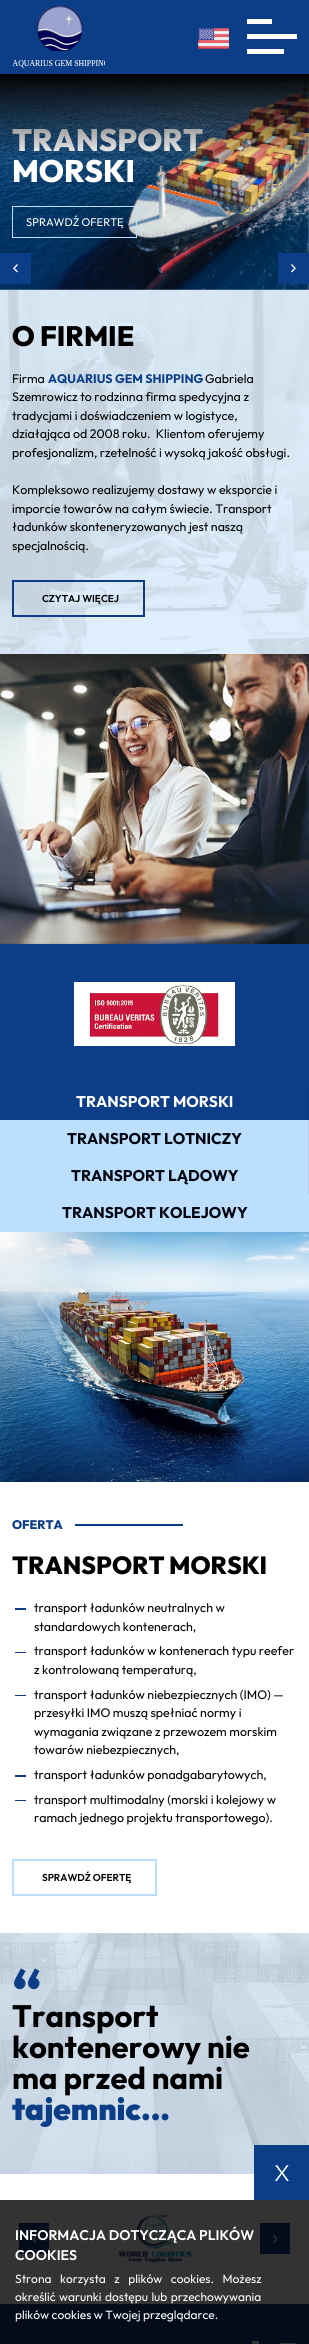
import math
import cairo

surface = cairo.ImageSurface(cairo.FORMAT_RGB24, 309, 2344)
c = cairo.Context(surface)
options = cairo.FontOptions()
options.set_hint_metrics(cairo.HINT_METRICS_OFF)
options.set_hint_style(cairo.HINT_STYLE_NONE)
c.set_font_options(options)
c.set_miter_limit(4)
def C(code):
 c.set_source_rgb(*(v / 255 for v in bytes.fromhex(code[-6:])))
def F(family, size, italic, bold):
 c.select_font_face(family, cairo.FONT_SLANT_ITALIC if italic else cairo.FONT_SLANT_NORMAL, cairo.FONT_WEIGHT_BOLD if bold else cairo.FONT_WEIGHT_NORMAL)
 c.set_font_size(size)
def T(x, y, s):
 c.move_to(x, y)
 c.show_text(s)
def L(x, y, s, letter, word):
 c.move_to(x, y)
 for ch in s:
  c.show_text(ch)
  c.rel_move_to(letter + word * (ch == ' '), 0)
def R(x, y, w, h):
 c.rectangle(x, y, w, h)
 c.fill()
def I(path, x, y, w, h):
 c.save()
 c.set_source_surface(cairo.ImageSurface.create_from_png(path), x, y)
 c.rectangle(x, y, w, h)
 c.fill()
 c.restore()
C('ffffff')
c.paint()
C('333333')
R(0,2200,309,104)
C('0c3e87')
R(0,0,309,74)
I('1.png',12,6,93,62)
I('2.png',198,28,31,21)
C('ffffff')
R(247,19,25,5)
R(247,34,50,5)
R(247,49,37,5)
I('3.png',0,75,309,215)
F('Outfit ExtraBold',31,0,0)
T(12,151,'TRANSPORT')
gradient = cairo.LinearGradient(155,160,155,74)
gradient.add_color_stop_rgba(0,0,0,0,0)
gradient.add_color_stop_rgba(1,0,0,0,1)
c.set_source(gradient)
R(0,74,309,84)
C('ffffff')
T(12,182,'MORSKI')
c.rectangle(12.5,206.5,124,31)
C('bcdeff')
c.set_line_width(1)
c.stroke()
F('Outfit',11.1,0,0)
C('ffffff')
T(26,226,'SPRAWDŹ OFERTĘ')
C('0c3e87')
R(0,253,31,31)
I('4.png',13,264,5,9)
R(278,253,31,31)
I('5.png',291,264,5,9)
I('6.png',0,290,309,364)
F('Outfit ExtraBold',28,0,0)
C('000000')
T(12,346,'O FIRMIE')
F('Outfit',12.4,0,0)
T(12,383,'Firma')
F('Outfit',12.4,0,1)
C('0c3e87')
T(48,383,'AQUARIUS GEM SHIPPING')
F('Outfit',12.4,0,0)
C('000000')
T(205,383,'Gabriela')
T(12,401,'Szemrowicz to rodzinna firma spedycyjna z')
T(12,420,'tradycjami i doświadczeniem w logistyce,')
T(12,438,'działająca od 2008 roku.  Klientom oferujemy')
T(12,457,'profesjonalizm, rzetelność i wysoką jakość obsługi.')
T(12,494,'Kompleksowo realizujemy dostawy w eksporcie i')
T(12,513,'imporcie towarów na całym świecie. Transport')
T(12,531,'ładunków skonteneryzowanych jest naszą')
T(12,550,'specjalnością.')
c.rectangle(13,581,131,35)
C('0c3e87')
c.set_line_width(2)
c.stroke()
F('Outfit SemiBold',10,0,0)
C('000000')
T(42,602,'CZYTAJ WIĘCEJ')
C('0c3e87')
R(0,944,309,139)
I('7.png',0,654,309,290)
I('8.png',74,982,161,64)
C('bcdeff')
R(0,1120,309,112)
C('0c3e87')
R(0,1083,308,37)
C('0b3b80')
R(308,1083,1,37)
F('Outfit',15.5,0,1)
C('ffffff')
T(76,1107,'TRANSPORT MORSKI')
C('b3d3f2')
R(308,1120,1,74)
C('00040d')
T(67,1144,'TRANSPORT LOTNICZY')
T(71,1181,'TRANSPORT LĄDOWY')
T(62,1218,'TRANSPORT KOLEJOWY')
I('9.png',0,1232,309,250)
F('Outfit ExtraBold',12.4,0,0)
C('0c3e87')
T(12,1529,'OFERTA')
R(75,1524,108,2)
F('Outfit ExtraBold',24.75,0,0)
C('000000')
T(12,1574,'TRANSPORT MORSKI')
C('0c3e87')
R(15,1608,11,2)
F('Outfit',12.4,0,0)
C('000000')
T(34,1612,'transport ładunków neutralnych w')
T(34,1631,'standardowych kontenerach,')
C('0c3e87')
R(15,1652,11,1)
C('000000')
T(34,1655,'transport ładunków w kontenerach typu reefer')
T(34,1674,'z kontrolowaną temperaturą,')
C('0c3e87')
R(15,1695,11,1)
C('000000')
T(34,1699,'transport ładunków niebezpiecznych (IMO) —')
T(34,1717,'przesyłki IMO muszą spełniać normy i')
T(34,1736,'wymagania związane z przewozem morskim')
T(34,1754,'towarów niebezpiecznych,')
C('0c3e87')
R(15,1775,11,2)
C('000000')
T(34,1779,'transport ładunków ponadgabarytowych,')
C('0c3e87')
R(15,1800,11,1)
C('000000')
T(34,1804,'transport multimodalny (morski i kolejowy w')
T(34,1822,'ramach jednego projektu transportowego).')
c.rectangle(13,1860,143,35)
C('bcdeff')
c.stroke()
F('Outfit SemiBold',10,0,0)
C('000000')
T(42,1881,'SPRAWDŹ OFERTĘ')
I('10.png',0,1933,309,241)
F('Outfit',62,0,1)
C('0c3e87')
T(12,2014,'“')
F('Outfit',31,0,1)
C('000000')
T(12,2027,'Transport')
T(12,2058,'kontenerowy nie')
T(12,2089,'ma przed nami')
F('Outfit Black',31,0,0)
C('0c3e87')
T(12,2120,'tajemnic...')
R(254,2145,55,55)
F('Outfit Light',23,0,0)
C('ffffff')
T(274,2181,'X')
I('11.png',118,2214,74,49)
C('020c1b')
R(19,2223,30,31)
I('12.png',32,2235,4,8)
F('Outfit SemiBold',14,0,0)
C('ffffff')
T(15,2240,'INFORMACJA DOTYCZĄCA PLIKÓW')
T(15,2260,'COOKIES')
F('Outfit',12,0,0)
L(15,2283,'Strona korzysta z plików cookies. Możesz',0,6)
L(15,2301,'określić warunki dostępu lub przechowywania',0,1)
C('020c1b')
R(0,2304,309,40)
C('ffffff')
T(15,2319,'plików cookies w Twojej przeglądarce.')
C('020c1b')
R(260,2223,30,31)
I('13.png',273,2235,4,8)
C('333333')
R(252,2341,7,3)
I('14.png',279,2343,17,1)
surface.write_to_png('o.png')
